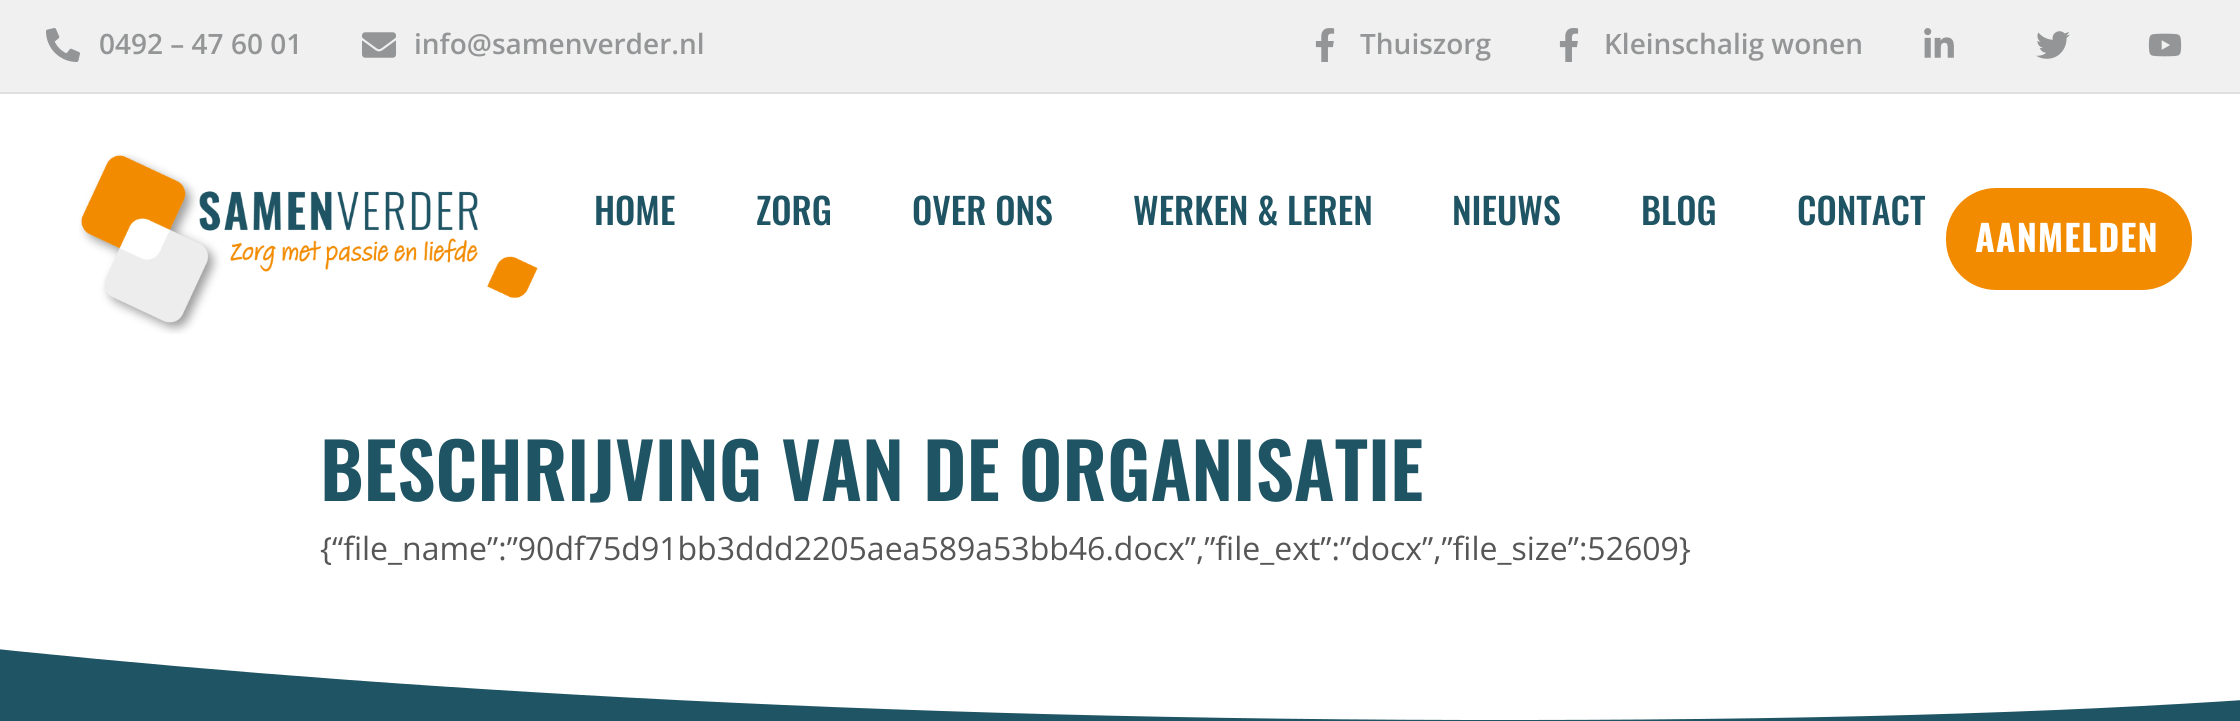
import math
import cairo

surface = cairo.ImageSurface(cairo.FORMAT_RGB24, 2240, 721)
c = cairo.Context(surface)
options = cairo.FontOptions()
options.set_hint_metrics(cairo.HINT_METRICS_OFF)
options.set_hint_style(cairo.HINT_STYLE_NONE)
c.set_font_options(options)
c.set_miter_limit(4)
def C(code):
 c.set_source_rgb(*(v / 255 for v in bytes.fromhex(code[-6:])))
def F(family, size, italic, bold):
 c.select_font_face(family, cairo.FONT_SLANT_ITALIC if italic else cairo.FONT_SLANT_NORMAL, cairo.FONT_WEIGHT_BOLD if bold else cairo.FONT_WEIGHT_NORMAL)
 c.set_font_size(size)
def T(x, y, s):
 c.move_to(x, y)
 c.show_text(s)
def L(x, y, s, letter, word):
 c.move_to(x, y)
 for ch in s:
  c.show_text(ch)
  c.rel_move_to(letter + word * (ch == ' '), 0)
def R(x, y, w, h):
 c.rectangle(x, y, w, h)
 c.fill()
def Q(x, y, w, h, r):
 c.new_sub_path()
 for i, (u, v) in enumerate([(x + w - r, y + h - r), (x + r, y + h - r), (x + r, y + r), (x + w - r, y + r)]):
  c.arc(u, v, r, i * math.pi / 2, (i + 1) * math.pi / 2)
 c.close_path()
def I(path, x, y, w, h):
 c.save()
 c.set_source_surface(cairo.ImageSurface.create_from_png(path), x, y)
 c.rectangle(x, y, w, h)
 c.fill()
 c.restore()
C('ffffff')
c.paint()
C('f0f0f0')
R(0,0,2240,92)
C('e0e0e0')
R(0,92,2240,2)
I('1.png',46,28,34,34)
F('Open Sans SemiBold',28,0,0)
C('949596')
T(99,54,'0492 – 47 60 01')
I('2.png',362,32,34,26)
T(414,54,'info@samenverder.nl')
I('3.png',1315,28,20,34)
T(1360,54,'Thuiszorg')
I('3.png',1559,28,20,34)
T(1604,54,'Kleinschalig wonen')
I('4.png',1924,28,30,30)
I('5.png',2036,31,34,28)
I('6.png',2148,33,34,24)
I('7.png',79,154,459,180)
F('Oswald Medium',36,0,0)
C('1e5463')
T(594,225,'HOME')
T(756,225,'ZORG')
T(912,225,'OVER ONS')
T(1133,225,'WERKEN & LEREN')
T(1452,225,'NIEUWS')
T(1641,225,'BLOG')
T(1797,225,'CONTACT')
C('f28b00')
Q(1946,188,246,102,50)
c.fill()
F('Oswald',36,0,1)
C('ffffff')
L(1975,252,'AANMELDEN',1,0)
F('Oswald SemiBold',76,0,0)
C('1e5463')
T(320,501,'BESCHRIJVING VAN DE ORGANISATIE')
F('Open Sans',32,0,0)
C('565656')
T(320,560,'{“file_name”:”90df75d91bb3ddd2205aea589a53bb46.docx”,”file_ext”:”docx”,”file_size”:52609}')
C('1e5463')
c.new_path()
c.move_to(1525,720)
c.curve_to(206,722,-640,575,-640,540)
c.line_to(-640,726)
c.line_to(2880,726)
c.line_to(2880,540)
c.curve_to(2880,576,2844,719,1525,720)
c.close_path()
c.fill()
surface.write_to_png('o.png')
